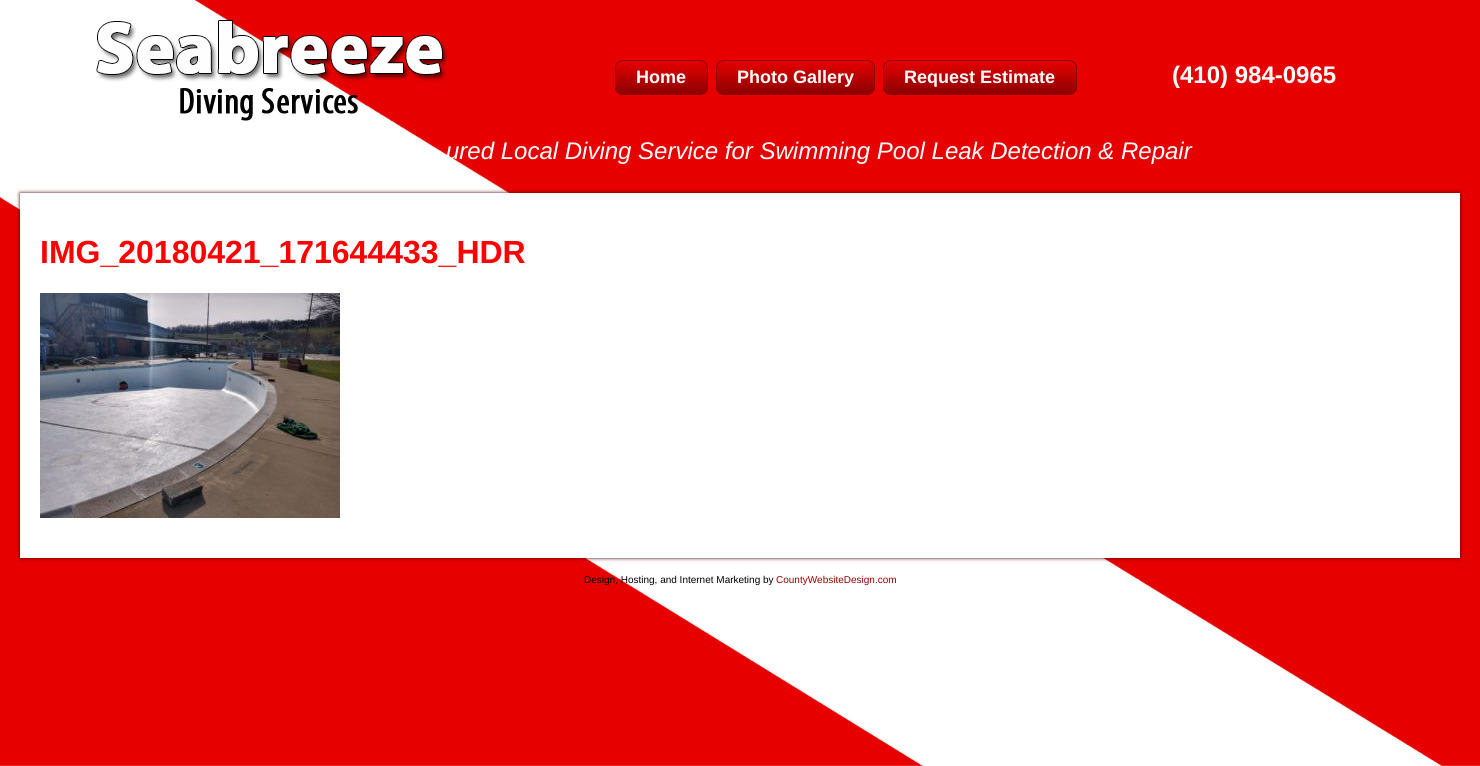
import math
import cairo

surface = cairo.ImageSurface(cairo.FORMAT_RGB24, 1480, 766)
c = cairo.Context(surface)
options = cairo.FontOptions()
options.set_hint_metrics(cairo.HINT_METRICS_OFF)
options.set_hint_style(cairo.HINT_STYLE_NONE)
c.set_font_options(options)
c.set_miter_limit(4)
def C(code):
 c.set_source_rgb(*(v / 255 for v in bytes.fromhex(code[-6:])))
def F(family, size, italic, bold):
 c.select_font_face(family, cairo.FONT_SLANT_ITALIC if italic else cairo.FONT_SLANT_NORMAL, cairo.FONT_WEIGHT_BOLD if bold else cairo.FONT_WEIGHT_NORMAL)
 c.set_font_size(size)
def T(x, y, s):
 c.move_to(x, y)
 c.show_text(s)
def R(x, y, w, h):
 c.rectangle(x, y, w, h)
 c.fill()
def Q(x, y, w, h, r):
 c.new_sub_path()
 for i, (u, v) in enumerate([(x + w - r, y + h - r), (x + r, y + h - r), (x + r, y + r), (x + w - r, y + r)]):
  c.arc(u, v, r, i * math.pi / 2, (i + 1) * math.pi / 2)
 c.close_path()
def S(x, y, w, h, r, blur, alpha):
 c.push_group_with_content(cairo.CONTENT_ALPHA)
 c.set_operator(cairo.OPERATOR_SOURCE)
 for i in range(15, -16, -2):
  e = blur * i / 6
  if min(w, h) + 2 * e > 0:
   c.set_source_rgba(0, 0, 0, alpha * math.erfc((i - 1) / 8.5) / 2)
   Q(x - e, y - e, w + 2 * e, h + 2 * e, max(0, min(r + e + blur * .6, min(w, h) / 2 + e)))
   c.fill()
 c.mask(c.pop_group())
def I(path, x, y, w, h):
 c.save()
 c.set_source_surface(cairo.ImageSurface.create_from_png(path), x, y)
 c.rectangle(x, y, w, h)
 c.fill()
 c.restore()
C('ffffff')
c.paint()
I('1.png',0,0,1480,766)
I('2.png',96,20,352,101)
c.save()
Q(615,60,93,35,8)
c.clip()
gradient = cairo.LinearGradient(662,61,662,94)
gradient.add_color_stop_rgba(0,0.902,0,0,1)
gradient.add_color_stop_rgba(1,0.549,0,0,1)
c.set_source(gradient)
R(615,61,93,33)
c.restore()
Q(615.5,60.5,92,34,7.5)
C('8c0000')
c.set_line_width(1)
c.stroke()
F('Liberation Sans',18,0,1)
C('ffffff')
T(636,83,'Home')
c.save()
Q(716,60,159,35,8)
c.clip()
gradient = cairo.LinearGradient(796,61,796,94)
gradient.add_color_stop_rgba(0,0.902,0,0,1)
gradient.add_color_stop_rgba(1,0.549,0,0,1)
c.set_source(gradient)
R(716,61,159,33)
c.restore()
Q(716.5,60.5,158,34,7.5)
C('8c0000')
c.stroke()
C('ffffff')
T(737,83,'Photo Gallery')
c.save()
Q(883,60,194,35,8)
c.clip()
gradient = cairo.LinearGradient(980,61,980,94)
gradient.add_color_stop_rgba(0,0.902,0,0,1)
gradient.add_color_stop_rgba(1,0.549,0,0,1)
c.set_source(gradient)
R(883,61,194,33)
c.restore()
Q(883.5,60.5,193,34,7.5)
C('8c0000')
c.stroke()
C('ffffff')
T(904,83,'Request Estimate')
F('Liberation Sans',24,0,1)
T(1172,83,'(410) 984-0965')
F('Liberation Sans',24,1,0)
T(446,159,'ured Local Diving Service for Swimming Pool Leak Detection & Repair')
C('550000')
S(20,193,1440,365,0,2,1)
C('ffffff')
R(20,193,1440,365)
F('Liberation Sans',32,0,1)
C('ff0000')
T(40,263,'IMG_20180421_171644433_HDR')
I('3.png',40,293,300,225)
F('Liberation Sans',10,0,0)
C('000000')
T(584,583,'Design, Hosting, and Internet Marketing by')
C('990000')
T(776,583,'CountyWebsiteDesign.com')
surface.write_to_png('o.png')
